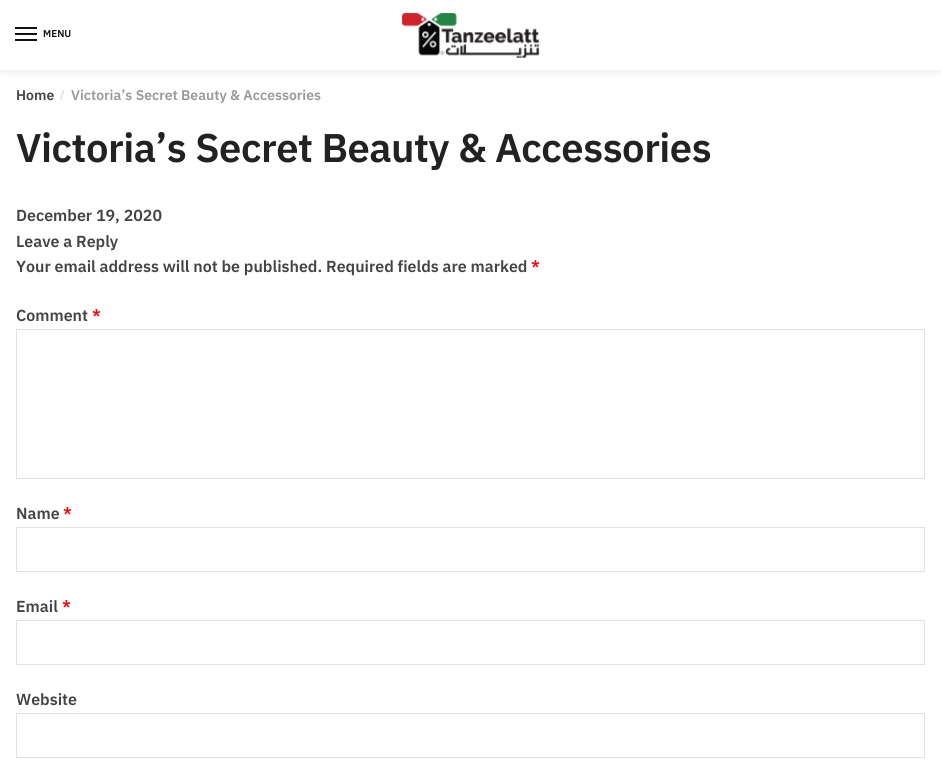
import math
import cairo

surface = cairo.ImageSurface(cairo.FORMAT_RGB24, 941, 761)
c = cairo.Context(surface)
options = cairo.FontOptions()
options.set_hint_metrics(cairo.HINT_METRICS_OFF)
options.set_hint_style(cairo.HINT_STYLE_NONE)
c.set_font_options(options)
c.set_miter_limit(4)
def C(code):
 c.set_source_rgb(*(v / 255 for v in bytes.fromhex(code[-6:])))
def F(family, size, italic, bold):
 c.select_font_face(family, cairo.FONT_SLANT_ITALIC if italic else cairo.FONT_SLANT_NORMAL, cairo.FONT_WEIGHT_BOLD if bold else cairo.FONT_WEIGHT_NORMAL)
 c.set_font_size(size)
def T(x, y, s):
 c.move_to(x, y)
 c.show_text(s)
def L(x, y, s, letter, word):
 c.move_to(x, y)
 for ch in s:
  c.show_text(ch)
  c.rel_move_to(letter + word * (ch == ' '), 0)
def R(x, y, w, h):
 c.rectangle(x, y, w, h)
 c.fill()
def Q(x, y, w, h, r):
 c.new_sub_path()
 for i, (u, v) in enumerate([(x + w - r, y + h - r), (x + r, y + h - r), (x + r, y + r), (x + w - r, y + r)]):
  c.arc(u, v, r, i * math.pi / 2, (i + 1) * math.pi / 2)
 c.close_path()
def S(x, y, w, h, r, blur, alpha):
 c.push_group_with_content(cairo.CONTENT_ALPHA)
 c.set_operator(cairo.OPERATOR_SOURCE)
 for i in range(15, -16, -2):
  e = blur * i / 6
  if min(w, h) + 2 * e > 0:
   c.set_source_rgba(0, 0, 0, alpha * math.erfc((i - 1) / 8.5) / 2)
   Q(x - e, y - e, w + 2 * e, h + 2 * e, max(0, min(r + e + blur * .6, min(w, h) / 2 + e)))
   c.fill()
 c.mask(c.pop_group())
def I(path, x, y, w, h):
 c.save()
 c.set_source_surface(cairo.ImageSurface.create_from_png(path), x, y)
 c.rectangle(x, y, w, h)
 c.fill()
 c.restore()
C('ffffff')
c.paint()
c.save()
c.rectangle(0,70,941,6)
c.clip()
C('000000')
S(0,1,941,70,0,7.5,.08)
c.restore()
C('111111')
R(15,27,22,2)
R(15,33,22,2)
F('IBM Plex Sans SemiBold',10,0,0)
T(43,37,'MENU')
R(15,39,22,2)
I('1.png',402,13,138,45)
F('IBM Plex Sans SemiBold',14,0,0)
C('444444')
T(16,100,'Home')
F('IBM Plex Sans SemiBold',11,0,0)
C('d6d6d6')
T(60,98,'/')
F('IBM Plex Sans SemiBold',14,0,0)
C('999999')
T(71,100,'Victoria’s Secret Beauty & Accessories')
F('IBM Plex Sans SemiBold',40,0,0)
C('222222')
L(16,162,'Victoria’s Secret Beauty & Accessories',-.5,0)
F('IBM Plex Sans SemiBold',16,0,0)
C('444444')
T(16,221,'December 19, 2020')
T(16,247,'Leave a Reply')
T(16,272,'Your email address will not be published. Required fields are marked')
C('ff0000')
T(531,272,'*')
C('444444')
T(16,321,'Comment')
C('ff0000')
T(92,321,'*')
c.rectangle(16.5,329.5,908,149)
C('e2e2e2')
c.set_line_width(1)
c.stroke()
C('444444')
T(16,519,'Name')
C('ff0000')
T(63,519,'*')
c.rectangle(16.5,527.5,908,44)
C('e2e2e2')
c.stroke()
C('444444')
T(16,612,'Email')
C('ff0000')
T(62,612,'*')
c.rectangle(16.5,620.5,908,44)
C('e2e2e2')
c.stroke()
C('444444')
T(16,705,'Website')
c.rectangle(16.5,713.5,908,44)
C('e2e2e2')
c.stroke()
surface.write_to_png('o.png')
